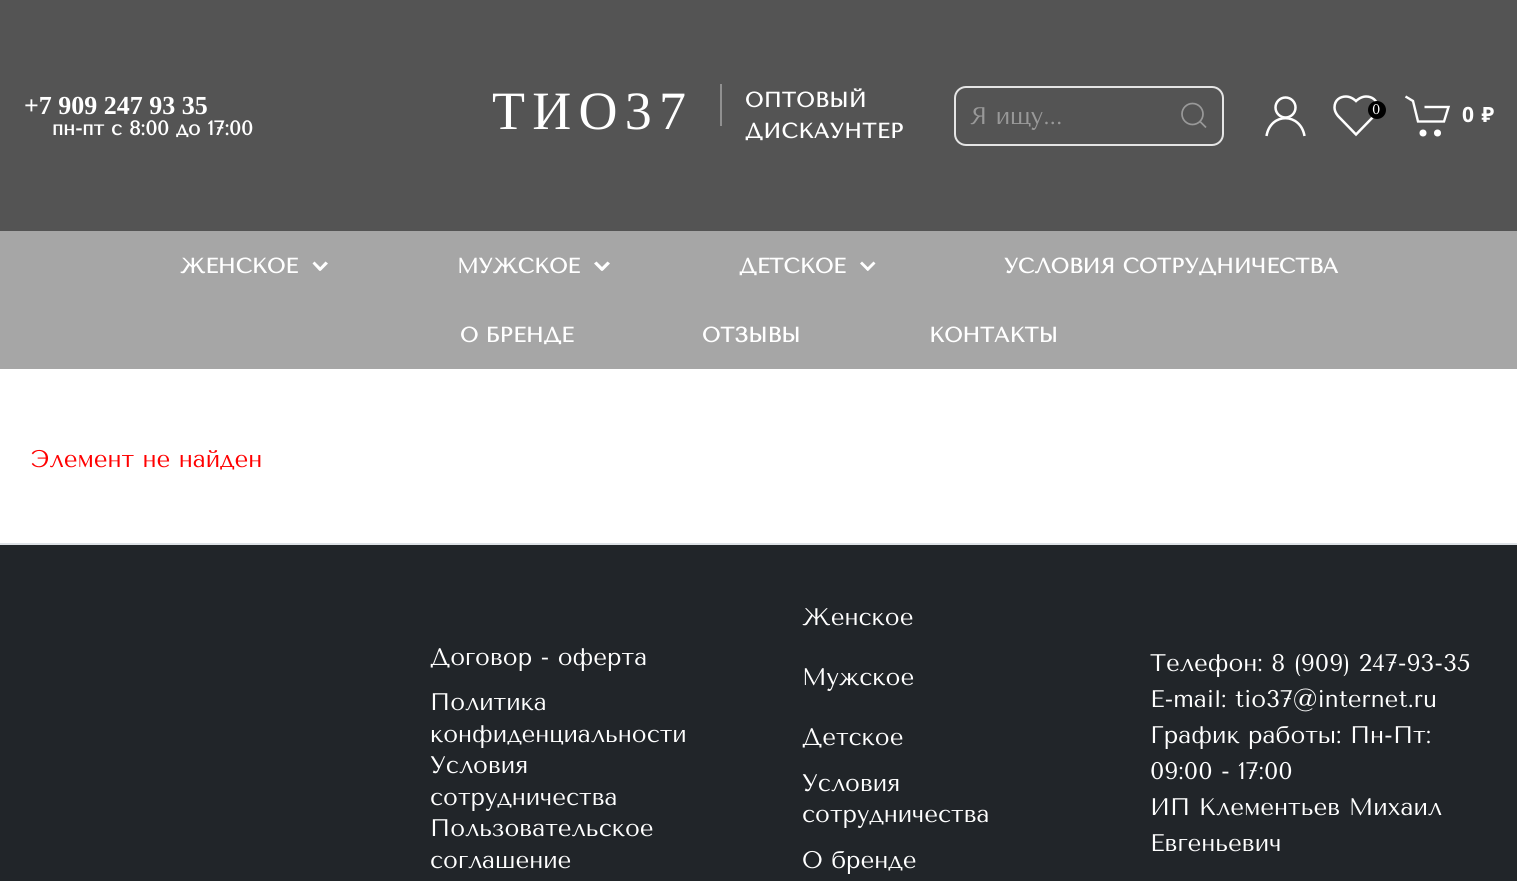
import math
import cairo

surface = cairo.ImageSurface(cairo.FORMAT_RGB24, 1517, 881)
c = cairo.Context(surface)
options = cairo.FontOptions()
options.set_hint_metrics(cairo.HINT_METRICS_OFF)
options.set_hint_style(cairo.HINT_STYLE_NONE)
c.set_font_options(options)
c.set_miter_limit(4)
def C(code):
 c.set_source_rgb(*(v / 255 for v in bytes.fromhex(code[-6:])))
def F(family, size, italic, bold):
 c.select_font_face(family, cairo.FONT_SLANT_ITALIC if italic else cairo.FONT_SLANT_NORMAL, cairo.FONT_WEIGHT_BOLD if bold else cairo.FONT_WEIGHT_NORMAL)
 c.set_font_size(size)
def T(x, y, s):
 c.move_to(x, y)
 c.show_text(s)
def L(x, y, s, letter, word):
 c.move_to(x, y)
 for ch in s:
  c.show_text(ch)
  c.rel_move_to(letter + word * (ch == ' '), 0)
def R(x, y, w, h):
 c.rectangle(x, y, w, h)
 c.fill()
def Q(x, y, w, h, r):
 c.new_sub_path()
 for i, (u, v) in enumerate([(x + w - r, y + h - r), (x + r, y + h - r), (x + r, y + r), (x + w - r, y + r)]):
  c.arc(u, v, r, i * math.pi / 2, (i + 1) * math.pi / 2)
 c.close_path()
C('ffffff')
c.paint()
C('545454')
R(0,0,1517,231)
F('Liberation Serif',26,0,1)
C('ffffff')
T(24,114,'+7 909 247 93 35')
F('Tenor Sans',20,0,1)
T(52,135,'пн-пт с 8:00 до 17:00')
F('Liberation Serif',54,0,0)
L(492,129,'ТИО37',7.25,0)
C('909090')
R(720,84,2,42)
F('Tenor Sans',21,0,1)
C('ffffff')
L(745,107,'ОПТОВЫЙ',.5,0)
L(745,138,'ДИСКАУНТЕР',.5,0)
Q(955,87,268,58,11)
C('e5e5e5')
c.stroke()
F('Tenor Sans',24,0,0)
C('999999')
T(970,124,'Я ищу...')
c.new_path()
c.arc(1192.5,114,10.5,0,2 * math.pi)
c.set_line_width(1.7)
c.stroke()
c.new_path()
c.move_to(1200,121.5)
c.line_to(1206,127.5)
c.close_path()
c.stroke()
c.arc(1285.5,107.5,10,0,2 * math.pi)
C('ffffff')
c.set_line_width(2.5)
c.stroke()
c.new_path()
c.move_to(1266.5,136)
c.curve_to(1270.5,112,1300.5,112.5,1304.5,136)
c.stroke()
c.new_path()
c.move_to(1356,101)
c.curve_to(1356,101,1351.5,96.5,1346,96.5)
c.curve_to(1340,96.5,1334.5,100,1334.5,107.5)
c.curve_to(1334.5,112.5,1338.5,116.5,1338.5,116.5)
c.line_to(1356,134.5)
c.line_to(1373.5,116.5)
c.curve_to(1373.5,116.5,1377.5,112.5,1377.5,107.5)
c.curve_to(1377.5,100,1372,96.5,1366,96.5)
c.curve_to(1360.5,96.5,1356,101,1356,101)
c.close_path()
c.stroke()
C('000000')
c.arc(1377,110,9,0,2 * math.pi)
c.fill()
F('Tenor Sans',14,0,0)
C('ffffff')
T(1372,114,'0')
c.new_path()
c.arc(1423,133,3.5,0,2 * math.pi)
c.fill()
c.arc(1437.5,133,3.5,0,2 * math.pi)
c.fill()
c.new_path()
c.move_to(1405.5,96.5)
c.line_to(1413,101)
c.line_to(1418,121.5)
c.line_to(1444,121.5)
c.line_to(1448.5,107)
c.line_to(1424.5,107)
c.set_line_width(2.4)
c.stroke()
F('Noto Sans',21,0,1)
L(1462,122,'0 ₽',0,2)
C('a6a6a6')
R(0,231,1517,138)
F('Tenor Sans',21,0,1)
C('ffffff')
T(180,273,'ЖЕНСКОЕ')
c.new_path()
c.move_to(318.5,269)
c.line_to(325.5,261.5)
c.line_to(328,263.5)
c.line_to(320.5,271)
c.close_path()
c.fill()
c.new_path()
c.move_to(314.5,261.5)
c.line_to(322,269)
c.line_to(319.5,271)
c.line_to(312.5,263.5)
c.close_path()
c.fill()
T(457,273,'МУЖСКОЕ')
c.new_path()
c.move_to(600,269)
c.line_to(607.5,261.5)
c.line_to(610,263.5)
c.line_to(602.5,271)
c.close_path()
c.fill()
c.new_path()
c.move_to(596.5,261.5)
c.line_to(604,269)
c.line_to(601.5,271)
c.line_to(594,263.5)
c.close_path()
c.fill()
T(739,273,'ДЕТСКОЕ')
c.new_path()
c.move_to(866,269)
c.line_to(873.5,261.5)
c.line_to(875.5,263.5)
c.line_to(868,271)
c.close_path()
c.fill()
c.new_path()
c.move_to(862,261.5)
c.line_to(869.5,269)
c.line_to(867.5,271)
c.line_to(860,263.5)
c.close_path()
c.fill()
T(1004,273,'УСЛОВИЯ СОТРУДНИЧЕСТВА')
T(460,342,'О БРЕНДЕ')
T(702,342,'ОТЗЫВЫ')
T(929,342,'КОНТАКТЫ')
F('Tenor Sans',24,0,0)
C('ff0000')
T(31,467,'Элемент не найден')
C('212529')
R(0,545,1517,336)
C('dee2e6')
R(0,543,1517,2)
C('ffffff')
T(430,665,'Договор - оферта')
T(430,710,'Политика')
T(430,742,'конфиденциальности')
T(430,773,'Условия')
T(430,805,'сотрудничества')
T(430,836,'Пользовательское')
T(430,868,'соглашение')
T(802,625,'Женское')
T(802,685,'Мужское')
T(802,745,'Детское')
T(802,791,'Условия')
T(802,822,'сотрудничества')
T(802,868,'О бренде')
T(1150,671,'Телефон: 8 (909) 247-93-35')
T(1150,707,'E-mail: tio37@internet.ru')
T(1150,743,'График работы: Пн-Пт:')
T(1150,779,'09:00 - 17:00')
T(1150,815,'ИП Клементьев Михаил')
T(1150,851,'Евгеньевич')
surface.write_to_png('o.png')
